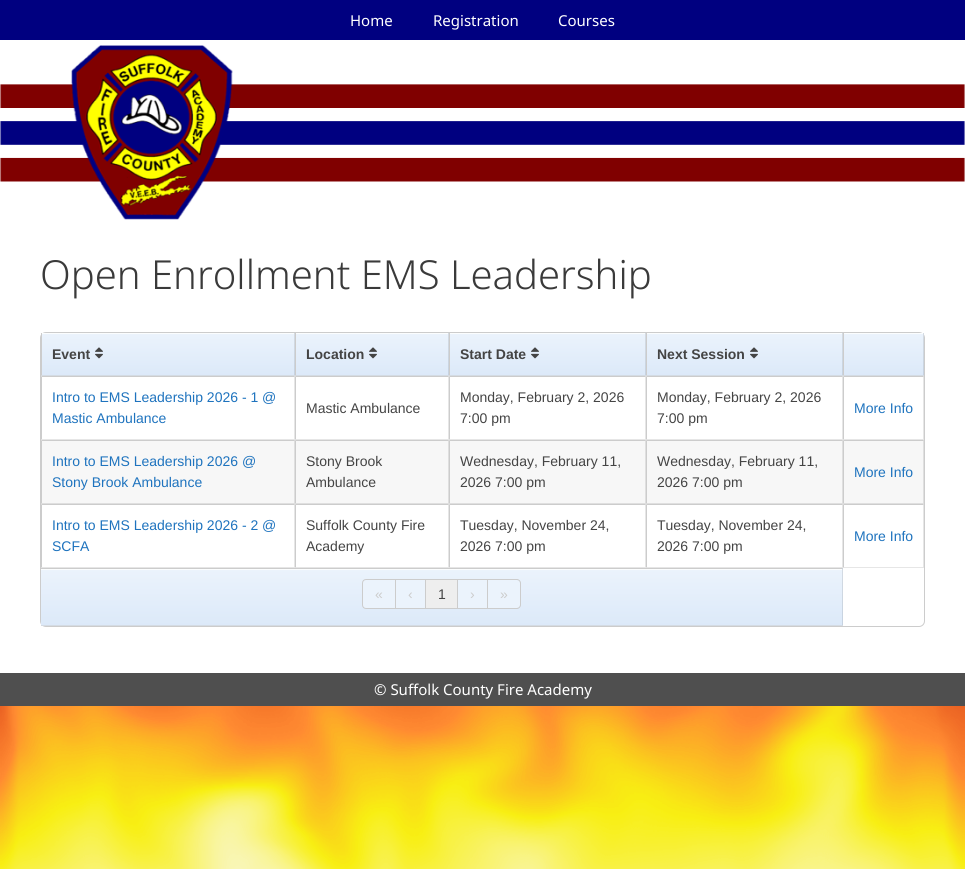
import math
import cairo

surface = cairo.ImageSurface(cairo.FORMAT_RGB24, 965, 869)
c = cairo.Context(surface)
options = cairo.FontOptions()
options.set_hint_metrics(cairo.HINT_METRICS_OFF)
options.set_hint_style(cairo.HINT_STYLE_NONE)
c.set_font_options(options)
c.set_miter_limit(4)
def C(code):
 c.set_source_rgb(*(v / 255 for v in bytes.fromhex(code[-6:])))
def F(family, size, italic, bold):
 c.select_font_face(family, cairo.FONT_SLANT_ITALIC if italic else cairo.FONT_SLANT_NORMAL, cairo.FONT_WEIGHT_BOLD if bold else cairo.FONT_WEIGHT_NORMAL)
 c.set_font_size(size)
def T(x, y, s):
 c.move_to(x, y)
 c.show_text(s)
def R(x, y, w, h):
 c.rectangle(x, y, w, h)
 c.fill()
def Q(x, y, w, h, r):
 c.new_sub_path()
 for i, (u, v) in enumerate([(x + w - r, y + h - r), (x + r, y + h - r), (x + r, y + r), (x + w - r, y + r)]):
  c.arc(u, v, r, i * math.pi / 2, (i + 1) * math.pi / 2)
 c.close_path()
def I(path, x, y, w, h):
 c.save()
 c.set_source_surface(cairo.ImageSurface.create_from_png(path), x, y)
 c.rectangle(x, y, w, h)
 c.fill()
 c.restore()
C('ffffff')
c.paint()
I('1.png',0,706,965,163)
C('000080')
R(0,0,965,40)
F('Noto Sans',15,0,0)
C('ffffff')
T(350,26,'Home')
T(433,26,'Registration')
T(558,26,'Courses')
I('2.png',0,45,965,175)
F('Noto Sans Light',40,0,0)
C('3a3a3a')
T(40,289,'Open Enrollment EMS Leadership')
Q(40.5,332.5,884,294,5.5)
C('cccccc')
c.set_line_width(1)
c.stroke()
gradient = cairo.LinearGradient(168,333,168,375)
gradient.add_color_stop_rgba(0,0.922,0.953,0.988,1)
gradient.add_color_stop_rgba(1,0.863,0.914,0.976,1)
c.set_source(gradient)
R(42,333,253,42)
gradient = cairo.LinearGradient(168,375,168,417)
gradient.add_color_stop_rgba(0,0.922,0.953,0.988,1)
gradient.add_color_stop_rgba(1,0.863,0.914,0.976,1)
c.set_source(gradient)
R(41,375,254,1)
C('fbfdfe')
R(42,333,252,1)
c.set_source_rgba(0,0,0,0.1)
c.new_path()
c.move_to(295,333)
c.line_to(295,376)
c.line_to(294,375)
c.line_to(294,333)
c.close_path()
c.fill()
c.new_path()
c.move_to(295,376)
c.line_to(41,376)
c.line_to(42,375)
c.line_to(294,375)
c.close_path()
c.fill()
C('cccccc')
c.new_path()
c.move_to(41,376)
c.line_to(41,333)
c.line_to(42,333)
c.line_to(42,375)
c.close_path()
c.fill()
F('Liberation Sans',14,0,1)
C('444444')
T(52,359,'Event')
I('3.png',95,347,8,12)
gradient = cairo.LinearGradient(372,333,372,375)
gradient.add_color_stop_rgba(0,0.922,0.953,0.988,1)
gradient.add_color_stop_rgba(1,0.863,0.914,0.976,1)
c.set_source(gradient)
R(296,333,153,42)
gradient = cairo.LinearGradient(372,375,372,417)
gradient.add_color_stop_rgba(0,0.922,0.953,0.988,1)
gradient.add_color_stop_rgba(1,0.863,0.914,0.976,1)
c.set_source(gradient)
R(295,375,154,1)
C('fbfdfe')
R(296,333,152,1)
c.set_source_rgba(0,0,0,0.1)
c.new_path()
c.move_to(449,333)
c.line_to(449,376)
c.line_to(448,375)
c.line_to(448,333)
c.close_path()
c.fill()
c.new_path()
c.move_to(449,376)
c.line_to(295,376)
c.line_to(296,375)
c.line_to(448,375)
c.close_path()
c.fill()
C('cccccc')
c.new_path()
c.move_to(295,376)
c.line_to(295,333)
c.line_to(296,333)
c.line_to(296,375)
c.close_path()
c.fill()
C('444444')
T(306,359,'Location')
I('3.png',369,347,8,12)
gradient = cairo.LinearGradient(548,333,548,375)
gradient.add_color_stop_rgba(0,0.922,0.953,0.988,1)
gradient.add_color_stop_rgba(1,0.863,0.914,0.976,1)
c.set_source(gradient)
R(450,333,196,42)
gradient = cairo.LinearGradient(548,375,548,417)
gradient.add_color_stop_rgba(0,0.922,0.953,0.988,1)
gradient.add_color_stop_rgba(1,0.863,0.914,0.976,1)
c.set_source(gradient)
R(449,375,197,1)
C('fbfdfe')
R(450,333,195,1)
c.set_source_rgba(0,0,0,0.1)
c.new_path()
c.move_to(646,333)
c.line_to(646,376)
c.line_to(645,375)
c.line_to(645,333)
c.close_path()
c.fill()
c.new_path()
c.move_to(646,376)
c.line_to(449,376)
c.line_to(450,375)
c.line_to(645,375)
c.close_path()
c.fill()
C('cccccc')
c.new_path()
c.move_to(449,376)
c.line_to(449,333)
c.line_to(450,333)
c.line_to(450,375)
c.close_path()
c.fill()
C('444444')
T(460,359,'Start Date')
I('3.png',531,347,8,12)
gradient = cairo.LinearGradient(745,333,745,375)
gradient.add_color_stop_rgba(0,0.922,0.953,0.988,1)
gradient.add_color_stop_rgba(1,0.863,0.914,0.976,1)
c.set_source(gradient)
R(647,333,196,42)
gradient = cairo.LinearGradient(745,375,745,417)
gradient.add_color_stop_rgba(0,0.922,0.953,0.988,1)
gradient.add_color_stop_rgba(1,0.863,0.914,0.976,1)
c.set_source(gradient)
R(646,375,197,1)
C('fbfdfe')
R(647,333,195,1)
c.set_source_rgba(0,0,0,0.1)
c.new_path()
c.move_to(843,333)
c.line_to(843,376)
c.line_to(842,375)
c.line_to(842,333)
c.close_path()
c.fill()
c.new_path()
c.move_to(843,376)
c.line_to(646,376)
c.line_to(647,375)
c.line_to(842,375)
c.close_path()
c.fill()
C('cccccc')
c.new_path()
c.move_to(646,376)
c.line_to(646,333)
c.line_to(647,333)
c.line_to(647,375)
c.close_path()
c.fill()
C('444444')
T(657,359,'Next Session')
I('3.png',750,347,8,12)
gradient = cairo.LinearGradient(884,333,884,375)
gradient.add_color_stop_rgba(0,0.922,0.953,0.988,1)
gradient.add_color_stop_rgba(1,0.863,0.914,0.976,1)
c.set_source(gradient)
R(844,333,80,42)
gradient = cairo.LinearGradient(884,375,884,417)
gradient.add_color_stop_rgba(0,0.922,0.953,0.988,1)
gradient.add_color_stop_rgba(1,0.863,0.914,0.976,1)
c.set_source(gradient)
R(843,375,81,1)
C('fbfdfe')
R(844,333,79,1)
c.set_source_rgba(0,0,0,0.1)
c.new_path()
c.move_to(924,333)
c.line_to(924,376)
c.line_to(923,375)
c.line_to(923,333)
c.close_path()
c.fill()
c.new_path()
c.move_to(924,376)
c.line_to(843,376)
c.line_to(844,375)
c.line_to(923,375)
c.close_path()
c.fill()
C('cccccc')
c.new_path()
c.move_to(843,376)
c.line_to(843,333)
c.line_to(844,333)
c.line_to(844,375)
c.close_path()
c.fill()
c.new_path()
c.move_to(41,376)
c.line_to(295,376)
c.line_to(294,377)
c.line_to(42,377)
c.close_path()
c.fill()
c.set_source_rgba(0,0,0,0.1)
c.new_path()
c.move_to(295,376)
c.line_to(295,440)
c.line_to(294,439)
c.line_to(294,377)
c.close_path()
c.fill()
c.new_path()
c.move_to(295,440)
c.line_to(41,440)
c.line_to(42,439)
c.line_to(294,439)
c.close_path()
c.fill()
C('cccccc')
c.new_path()
c.move_to(41,440)
c.line_to(41,376)
c.line_to(42,377)
c.line_to(42,439)
c.close_path()
c.fill()
F('Liberation Sans',14,0,0)
C('1e73be')
T(52,402,'Intro to EMS Leadership 2026 - 1 @')
T(52,423,'Mastic Ambulance')
C('cccccc')
c.new_path()
c.move_to(295,376)
c.line_to(449,376)
c.line_to(448,377)
c.line_to(296,377)
c.close_path()
c.fill()
c.set_source_rgba(0,0,0,0.1)
c.new_path()
c.move_to(449,376)
c.line_to(449,440)
c.line_to(448,439)
c.line_to(448,377)
c.close_path()
c.fill()
c.new_path()
c.move_to(449,440)
c.line_to(295,440)
c.line_to(296,439)
c.line_to(448,439)
c.close_path()
c.fill()
C('cccccc')
c.new_path()
c.move_to(295,440)
c.line_to(295,376)
c.line_to(296,377)
c.line_to(296,439)
c.close_path()
c.fill()
C('444444')
T(306,413,'Mastic Ambulance')
C('cccccc')
c.new_path()
c.move_to(449,376)
c.line_to(646,376)
c.line_to(645,377)
c.line_to(450,377)
c.close_path()
c.fill()
c.set_source_rgba(0,0,0,0.1)
c.new_path()
c.move_to(646,376)
c.line_to(646,440)
c.line_to(645,439)
c.line_to(645,377)
c.close_path()
c.fill()
c.new_path()
c.move_to(646,440)
c.line_to(449,440)
c.line_to(450,439)
c.line_to(645,439)
c.close_path()
c.fill()
C('cccccc')
c.new_path()
c.move_to(449,440)
c.line_to(449,376)
c.line_to(450,377)
c.line_to(450,439)
c.close_path()
c.fill()
C('444444')
T(460,402,'Monday, February 2, 2026')
T(460,423,'7:00 pm')
C('cccccc')
c.new_path()
c.move_to(646,376)
c.line_to(843,376)
c.line_to(842,377)
c.line_to(647,377)
c.close_path()
c.fill()
c.set_source_rgba(0,0,0,0.1)
c.new_path()
c.move_to(843,376)
c.line_to(843,440)
c.line_to(842,439)
c.line_to(842,377)
c.close_path()
c.fill()
c.new_path()
c.move_to(843,440)
c.line_to(646,440)
c.line_to(647,439)
c.line_to(842,439)
c.close_path()
c.fill()
C('cccccc')
c.new_path()
c.move_to(646,440)
c.line_to(646,376)
c.line_to(647,377)
c.line_to(647,439)
c.close_path()
c.fill()
C('444444')
T(657,402,'Monday, February 2, 2026')
T(657,423,'7:00 pm')
C('cccccc')
c.new_path()
c.move_to(843,376)
c.line_to(924,376)
c.line_to(923,377)
c.line_to(844,377)
c.close_path()
c.fill()
c.set_source_rgba(0,0,0,0.1)
c.new_path()
c.move_to(924,376)
c.line_to(924,440)
c.line_to(923,439)
c.line_to(923,377)
c.close_path()
c.fill()
c.new_path()
c.move_to(924,440)
c.line_to(843,440)
c.line_to(844,439)
c.line_to(923,439)
c.close_path()
c.fill()
C('cccccc')
c.new_path()
c.move_to(843,440)
c.line_to(843,376)
c.line_to(844,377)
c.line_to(844,439)
c.close_path()
c.fill()
C('1e73be')
T(854,413,'More Info')
C('f7f7f7')
R(41,440,883,64)
C('cccccc')
c.new_path()
c.move_to(41,440)
c.line_to(295,440)
c.line_to(294,441)
c.line_to(42,441)
c.close_path()
c.fill()
c.set_source_rgba(0,0,0,0.1)
c.new_path()
c.move_to(295,440)
c.line_to(295,504)
c.line_to(294,503)
c.line_to(294,441)
c.close_path()
c.fill()
c.new_path()
c.move_to(295,504)
c.line_to(41,504)
c.line_to(42,503)
c.line_to(294,503)
c.close_path()
c.fill()
C('cccccc')
c.new_path()
c.move_to(41,504)
c.line_to(41,440)
c.line_to(42,441)
c.line_to(42,503)
c.close_path()
c.fill()
C('1e73be')
T(52,466,'Intro to EMS Leadership 2026 @')
T(52,487,'Stony Brook Ambulance')
C('cccccc')
c.new_path()
c.move_to(295,440)
c.line_to(449,440)
c.line_to(448,441)
c.line_to(296,441)
c.close_path()
c.fill()
c.set_source_rgba(0,0,0,0.1)
c.new_path()
c.move_to(449,440)
c.line_to(449,504)
c.line_to(448,503)
c.line_to(448,441)
c.close_path()
c.fill()
c.new_path()
c.move_to(449,504)
c.line_to(295,504)
c.line_to(296,503)
c.line_to(448,503)
c.close_path()
c.fill()
C('cccccc')
c.new_path()
c.move_to(295,504)
c.line_to(295,440)
c.line_to(296,441)
c.line_to(296,503)
c.close_path()
c.fill()
C('444444')
T(306,466,'Stony Brook')
T(306,487,'Ambulance')
C('cccccc')
c.new_path()
c.move_to(449,440)
c.line_to(646,440)
c.line_to(645,441)
c.line_to(450,441)
c.close_path()
c.fill()
c.set_source_rgba(0,0,0,0.1)
c.new_path()
c.move_to(646,440)
c.line_to(646,504)
c.line_to(645,503)
c.line_to(645,441)
c.close_path()
c.fill()
c.new_path()
c.move_to(646,504)
c.line_to(449,504)
c.line_to(450,503)
c.line_to(645,503)
c.close_path()
c.fill()
C('cccccc')
c.new_path()
c.move_to(449,504)
c.line_to(449,440)
c.line_to(450,441)
c.line_to(450,503)
c.close_path()
c.fill()
C('444444')
T(460,466,'Wednesday, February 11,')
T(460,487,'2026 7:00 pm')
C('cccccc')
c.new_path()
c.move_to(646,440)
c.line_to(843,440)
c.line_to(842,441)
c.line_to(647,441)
c.close_path()
c.fill()
c.set_source_rgba(0,0,0,0.1)
c.new_path()
c.move_to(843,440)
c.line_to(843,504)
c.line_to(842,503)
c.line_to(842,441)
c.close_path()
c.fill()
c.new_path()
c.move_to(843,504)
c.line_to(646,504)
c.line_to(647,503)
c.line_to(842,503)
c.close_path()
c.fill()
C('cccccc')
c.new_path()
c.move_to(646,504)
c.line_to(646,440)
c.line_to(647,441)
c.line_to(647,503)
c.close_path()
c.fill()
C('444444')
T(657,466,'Wednesday, February 11,')
T(657,487,'2026 7:00 pm')
C('cccccc')
c.new_path()
c.move_to(843,440)
c.line_to(924,440)
c.line_to(923,441)
c.line_to(844,441)
c.close_path()
c.fill()
c.set_source_rgba(0,0,0,0.1)
c.new_path()
c.move_to(924,440)
c.line_to(924,504)
c.line_to(923,503)
c.line_to(923,441)
c.close_path()
c.fill()
c.new_path()
c.move_to(924,504)
c.line_to(843,504)
c.line_to(844,503)
c.line_to(923,503)
c.close_path()
c.fill()
C('cccccc')
c.new_path()
c.move_to(843,504)
c.line_to(843,440)
c.line_to(844,441)
c.line_to(844,503)
c.close_path()
c.fill()
C('1e73be')
T(854,477,'More Info')
C('cccccc')
c.new_path()
c.move_to(41,504)
c.line_to(295,504)
c.line_to(294,505)
c.line_to(42,505)
c.close_path()
c.fill()
c.set_source_rgba(0,0,0,0.1)
c.new_path()
c.move_to(295,504)
c.line_to(295,568)
c.line_to(294,567)
c.line_to(294,505)
c.close_path()
c.fill()
c.new_path()
c.move_to(295,568)
c.line_to(41,568)
c.line_to(42,567)
c.line_to(294,567)
c.close_path()
c.fill()
C('cccccc')
c.new_path()
c.move_to(41,568)
c.line_to(41,504)
c.line_to(42,505)
c.line_to(42,567)
c.close_path()
c.fill()
C('1e73be')
T(52,530,'Intro to EMS Leadership 2026 - 2 @')
T(52,551,'SCFA')
C('cccccc')
c.new_path()
c.move_to(295,504)
c.line_to(449,504)
c.line_to(448,505)
c.line_to(296,505)
c.close_path()
c.fill()
c.set_source_rgba(0,0,0,0.1)
c.new_path()
c.move_to(449,504)
c.line_to(449,568)
c.line_to(448,567)
c.line_to(448,505)
c.close_path()
c.fill()
c.new_path()
c.move_to(449,568)
c.line_to(295,568)
c.line_to(296,567)
c.line_to(448,567)
c.close_path()
c.fill()
C('cccccc')
c.new_path()
c.move_to(295,568)
c.line_to(295,504)
c.line_to(296,505)
c.line_to(296,567)
c.close_path()
c.fill()
C('444444')
T(306,530,'Suffolk County Fire')
T(306,551,'Academy')
C('cccccc')
c.new_path()
c.move_to(449,504)
c.line_to(646,504)
c.line_to(645,505)
c.line_to(450,505)
c.close_path()
c.fill()
c.set_source_rgba(0,0,0,0.1)
c.new_path()
c.move_to(646,504)
c.line_to(646,568)
c.line_to(645,567)
c.line_to(645,505)
c.close_path()
c.fill()
c.new_path()
c.move_to(646,568)
c.line_to(449,568)
c.line_to(450,567)
c.line_to(645,567)
c.close_path()
c.fill()
C('cccccc')
c.new_path()
c.move_to(449,568)
c.line_to(449,504)
c.line_to(450,505)
c.line_to(450,567)
c.close_path()
c.fill()
C('444444')
T(460,530,'Tuesday, November 24,')
T(460,551,'2026 7:00 pm')
C('cccccc')
c.new_path()
c.move_to(646,504)
c.line_to(843,504)
c.line_to(842,505)
c.line_to(647,505)
c.close_path()
c.fill()
c.set_source_rgba(0,0,0,0.1)
c.new_path()
c.move_to(843,504)
c.line_to(843,568)
c.line_to(842,567)
c.line_to(842,505)
c.close_path()
c.fill()
c.new_path()
c.move_to(843,568)
c.line_to(646,568)
c.line_to(647,567)
c.line_to(842,567)
c.close_path()
c.fill()
C('cccccc')
c.new_path()
c.move_to(646,568)
c.line_to(646,504)
c.line_to(647,505)
c.line_to(647,567)
c.close_path()
c.fill()
C('444444')
T(657,530,'Tuesday, November 24,')
T(657,551,'2026 7:00 pm')
C('cccccc')
c.new_path()
c.move_to(843,504)
c.line_to(924,504)
c.line_to(923,505)
c.line_to(844,505)
c.close_path()
c.fill()
c.set_source_rgba(0,0,0,0.1)
c.new_path()
c.move_to(924,504)
c.line_to(924,568)
c.line_to(923,567)
c.line_to(923,505)
c.close_path()
c.fill()
c.new_path()
c.move_to(924,568)
c.line_to(843,568)
c.line_to(844,567)
c.line_to(923,567)
c.close_path()
c.fill()
C('cccccc')
c.new_path()
c.move_to(843,568)
c.line_to(843,504)
c.line_to(844,505)
c.line_to(844,567)
c.close_path()
c.fill()
C('1e73be')
T(854,541,'More Info')
C('dce9f9')
R(842,568,1,1)
gradient = cairo.LinearGradient(442,569,442,625)
gradient.add_color_stop_rgba(0,0.922,0.953,0.988,1)
gradient.add_color_stop_rgba(1,0.863,0.914,0.976,1)
c.set_source(gradient)
R(41,569,802,56)
gradient = cairo.LinearGradient(442,625,442,681)
gradient.add_color_stop_rgba(0,0.922,0.953,0.988,1)
gradient.add_color_stop_rgba(1,0.863,0.914,0.976,1)
c.set_source(gradient)
R(41,625,802,1)
C('fbfdfe')
R(41,569,801,1)
C('cccccc')
c.new_path()
c.move_to(41,568)
c.line_to(843,568)
c.line_to(842,569)
c.line_to(41,569)
c.close_path()
c.fill()
c.set_source_rgba(0,0,0,0.1)
c.new_path()
c.move_to(843,568)
c.line_to(843,626)
c.line_to(842,625)
c.line_to(842,569)
c.close_path()
c.fill()
c.new_path()
c.move_to(843,626)
c.line_to(41,626)
c.line_to(41,625)
c.line_to(842,625)
c.close_path()
c.fill()
C('ebf3fc')
c.new_path()
c.move_to(366,579.5)
c.line_to(395.5,579.5)
c.line_to(395.5,608.5)
c.line_to(366,608.5)
c.curve_to(364,608.5,362.5,607,362.5,605)
c.line_to(362.5,583)
c.curve_to(362.5,581,364,579.5,366,579.5)
c.close_path()
c.fill_preserve()
C('cccccc')
c.stroke()
T(375,599,'«')
C('ebf3fc')
R(396,580,29,28)
C('cccccc')
R(396,579,92,1)
R(425,579,1,30)
R(396,608,30,1)
T(408,599,'‹')
C('eeeeee')
R(426,580,31,28)
C('cccccc')
R(457,579,1,30)
R(426,608,32,1)
C('444444')
T(438,599,'1')
C('ebf3fc')
R(458,580,29,28)
C('cccccc')
R(487,579,1,30)
R(458,608,30,1)
T(470,599,'›')
C('ebf3fc')
c.new_path()
c.move_to(488,580)
c.line_to(517,580)
c.curve_to(518.5,580,520,581.5,520,583)
c.line_to(520,605)
c.curve_to(520,606.5,518.5,608,517,608)
c.line_to(488,608)
c.close_path()
c.fill()
C('cccccc')
c.set_fill_rule(cairo.FILL_RULE_EVEN_ODD)
c.new_path()
c.move_to(488,579)
c.line_to(517,579)
c.curve_to(519,579,521,581,521,583)
c.line_to(521,605)
c.curve_to(521,607,519,609,517,609)
c.line_to(488,609)
c.close_path()
c.move_to(488,580)
c.line_to(517,580)
c.curve_to(518.5,580,520,581.5,520,583)
c.line_to(520,605)
c.curve_to(520,606.5,518.5,608,517,608)
c.line_to(488,608)
c.close_path()
c.fill()
T(500,599,'»')
C('4f4f4f')
R(0,673,965,33)
F('Noto Sans',15,0,0)
C('ffffff')
T(374,695,'© Suffolk County Fire Academy')
surface.write_to_png('o.png')
